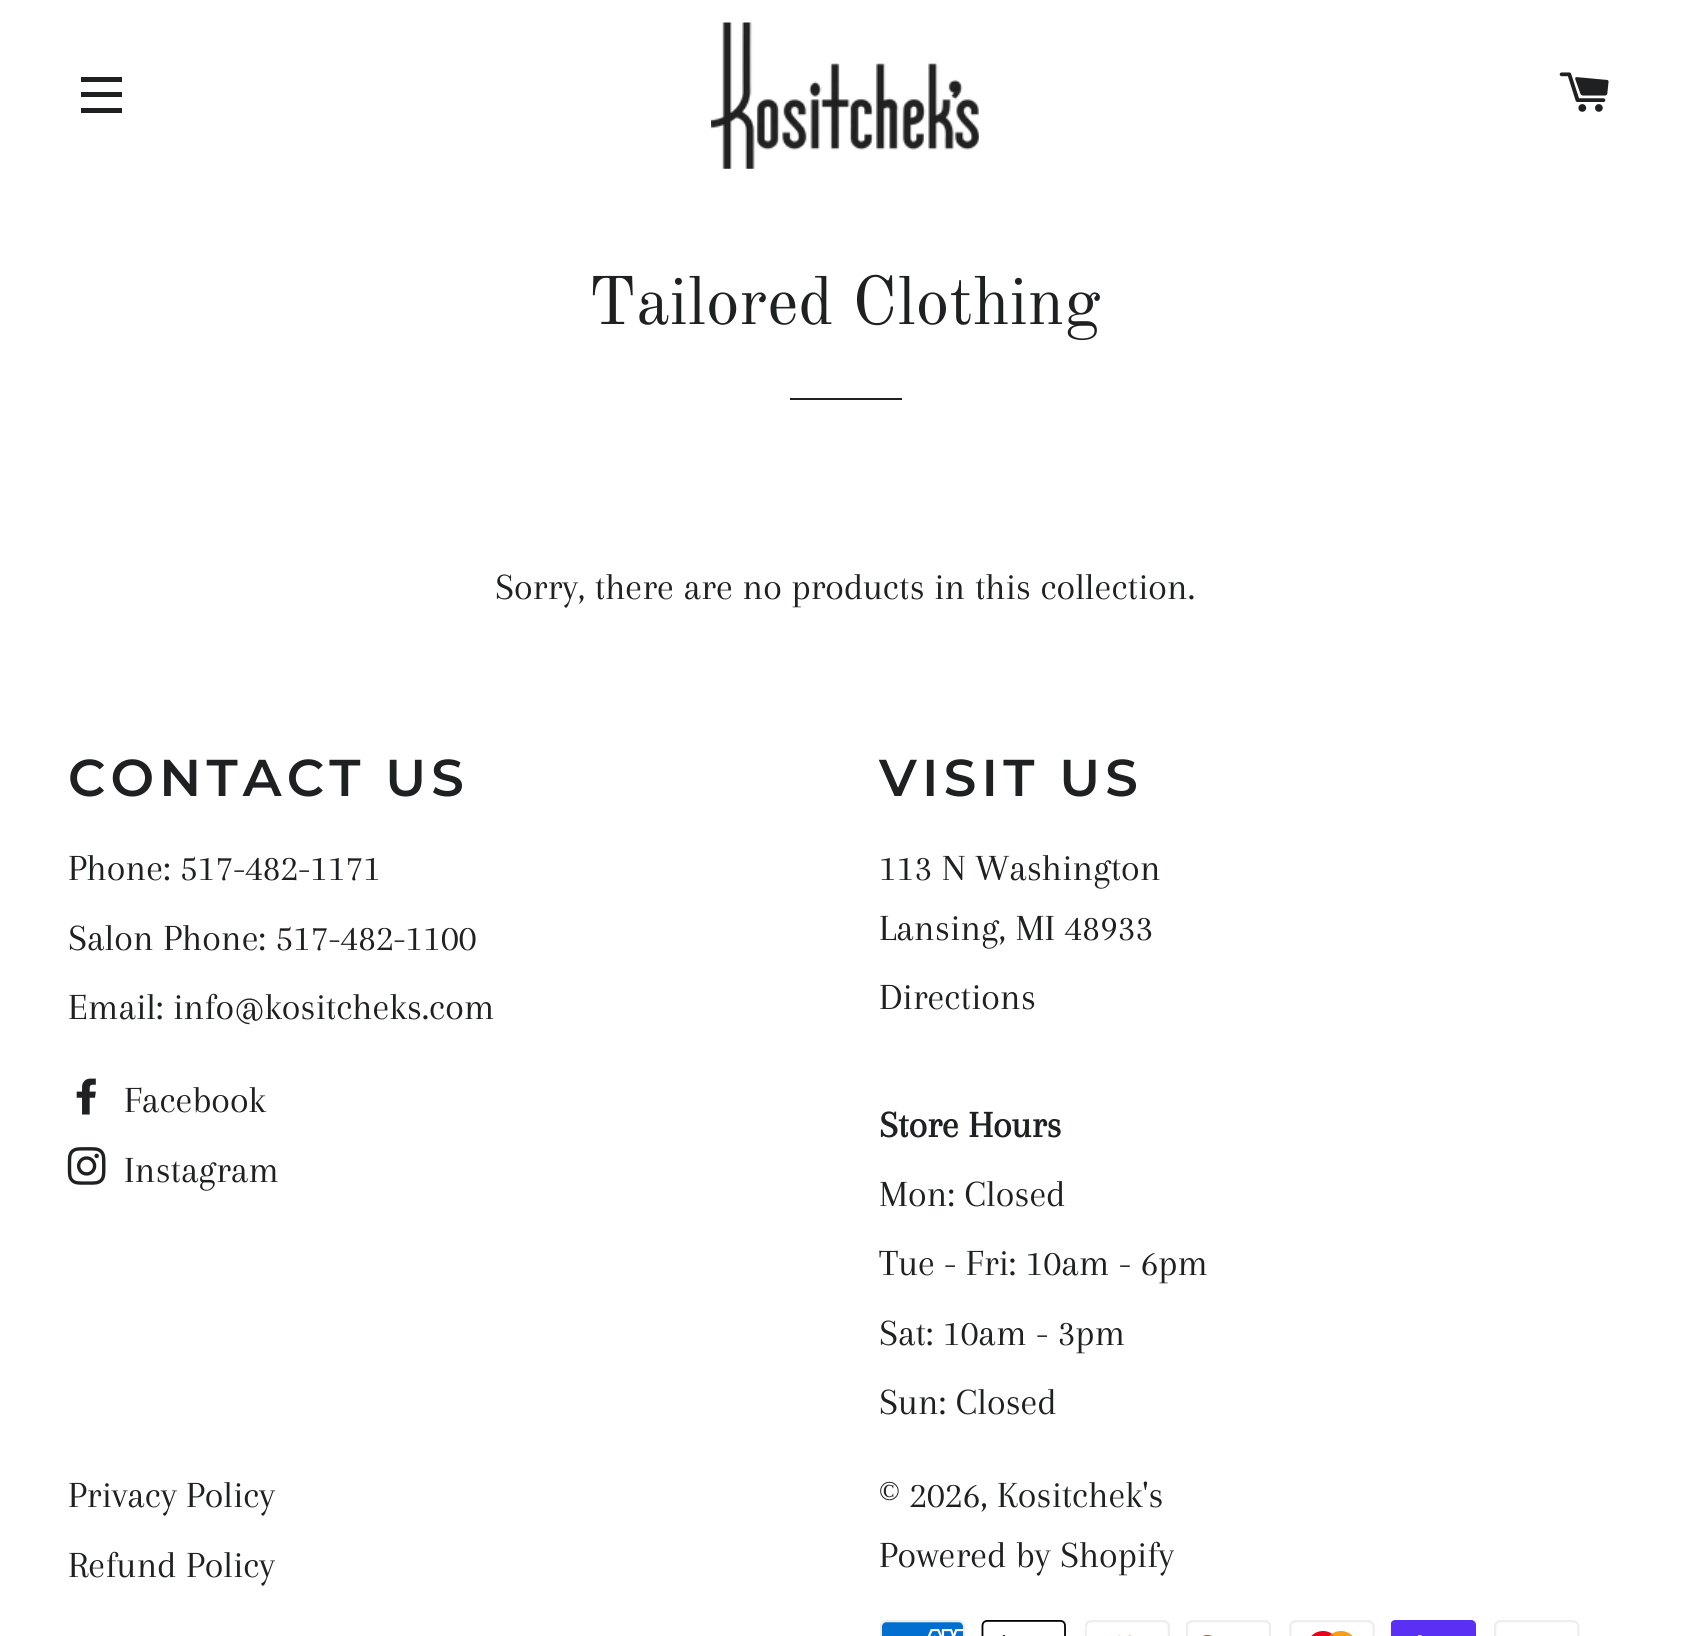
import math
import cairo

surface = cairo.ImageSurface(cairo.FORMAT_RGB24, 1689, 1636)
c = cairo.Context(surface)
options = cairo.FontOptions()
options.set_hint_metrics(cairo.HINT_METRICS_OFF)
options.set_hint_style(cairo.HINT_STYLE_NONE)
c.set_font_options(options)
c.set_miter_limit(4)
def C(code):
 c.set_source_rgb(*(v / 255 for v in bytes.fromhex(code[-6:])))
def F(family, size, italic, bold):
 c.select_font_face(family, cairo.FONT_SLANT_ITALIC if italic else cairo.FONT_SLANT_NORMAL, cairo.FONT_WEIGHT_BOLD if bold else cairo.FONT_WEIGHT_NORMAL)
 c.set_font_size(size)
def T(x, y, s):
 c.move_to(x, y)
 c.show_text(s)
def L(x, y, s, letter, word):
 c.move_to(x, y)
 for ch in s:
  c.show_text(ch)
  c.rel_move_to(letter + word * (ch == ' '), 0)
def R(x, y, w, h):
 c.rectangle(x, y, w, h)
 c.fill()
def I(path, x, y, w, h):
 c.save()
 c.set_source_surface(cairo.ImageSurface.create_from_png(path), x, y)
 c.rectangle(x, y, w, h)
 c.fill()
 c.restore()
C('ffffff')
c.paint()
C('1f2021')
R(81,77,41,5)
R(81,92,41,5)
R(81,108,41,5)
I('1.png',711,22,268,147)
I('2.png',1559,72,50,40)
F('Old Standard TT',67.5,0,0)
T(588,324,'Tailored Clothing')
R(790,398,112,2)
F('Arapey',38.25,0,0)
T(495,599,'Sorry, there are no products in this collection.')
F('Montserrat SemiBold',51.75,0,0)
L(68,796,'CONTACT US',5.25,0)
F('Arapey',38.25,0,0)
T(68,880,'Phone: 517-482-1171')
T(68,950,'Salon Phone: 517-482-1100')
T(68,1019,'Email: info@kositcheks.com')
I('3.png',76,1078,20,37)
T(124,1112,'Facebook')
I('4.png',67,1147,39,38)
T(124,1182,'Instagram')
F('Montserrat SemiBold',51.75,0,0)
L(879,796,'VISIT US',5.25,0)
F('Arapey',38.25,0,0)
T(879,880,'113 N Washington')
T(879,940,'Lansing, MI 48933')
T(879,1009,'Directions')
F('Arapey',38.25,0,1)
T(879,1137,'Store Hours')
F('Arapey',38.25,0,0)
T(879,1206,'Mon: Closed')
T(879,1275,'Tue - Fri: 10am - 6pm')
T(879,1345,'Sat: 10am - 3pm')
T(879,1414,'Sun: Closed')
T(68,1507,'Privacy Policy')
T(68,1577,'Refund Policy')
T(879,1507,'© 2026, Kositchek\'s')
T(879,1567,'Powered by Shopify')
I('5.png',880,1620,85,16)
I('6.png',981,1620,85,16)
I('7.png',1085,1620,85,16)
I('8.png',1186,1620,85,16)
I('9.png',1289,1620,86,16)
I('10.png',1391,1620,85,16)
I('11.png',1494,1620,86,16)
surface.write_to_png('o.png')
